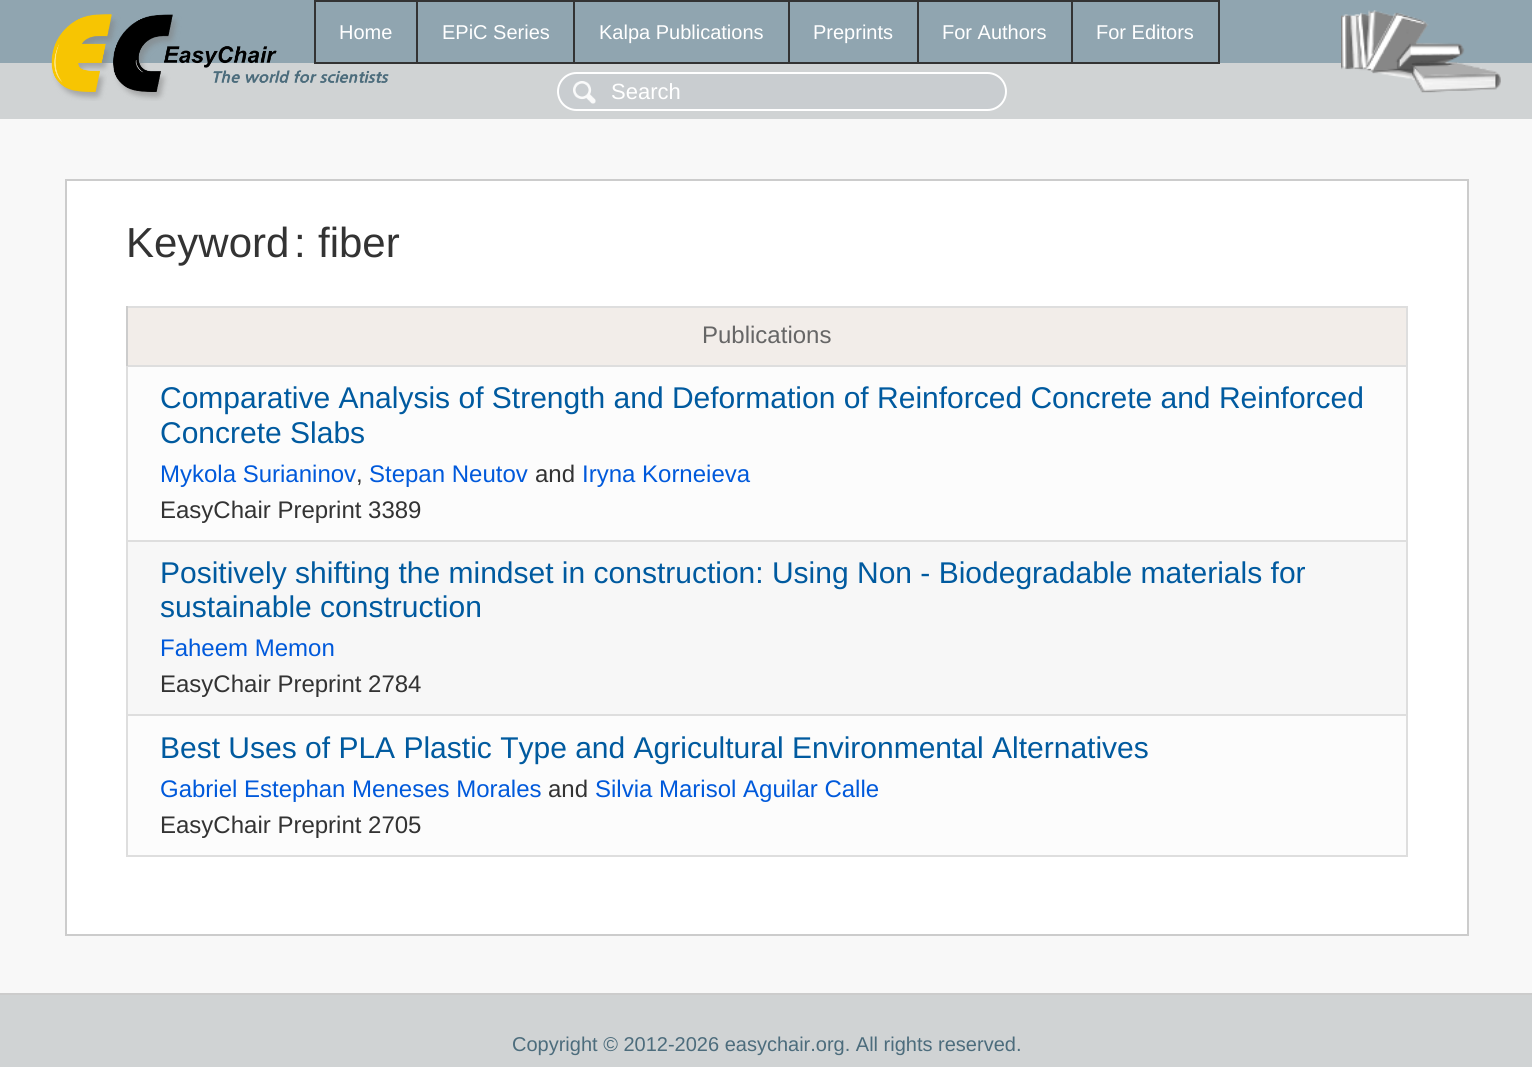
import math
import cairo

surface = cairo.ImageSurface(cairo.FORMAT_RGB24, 1532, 1067)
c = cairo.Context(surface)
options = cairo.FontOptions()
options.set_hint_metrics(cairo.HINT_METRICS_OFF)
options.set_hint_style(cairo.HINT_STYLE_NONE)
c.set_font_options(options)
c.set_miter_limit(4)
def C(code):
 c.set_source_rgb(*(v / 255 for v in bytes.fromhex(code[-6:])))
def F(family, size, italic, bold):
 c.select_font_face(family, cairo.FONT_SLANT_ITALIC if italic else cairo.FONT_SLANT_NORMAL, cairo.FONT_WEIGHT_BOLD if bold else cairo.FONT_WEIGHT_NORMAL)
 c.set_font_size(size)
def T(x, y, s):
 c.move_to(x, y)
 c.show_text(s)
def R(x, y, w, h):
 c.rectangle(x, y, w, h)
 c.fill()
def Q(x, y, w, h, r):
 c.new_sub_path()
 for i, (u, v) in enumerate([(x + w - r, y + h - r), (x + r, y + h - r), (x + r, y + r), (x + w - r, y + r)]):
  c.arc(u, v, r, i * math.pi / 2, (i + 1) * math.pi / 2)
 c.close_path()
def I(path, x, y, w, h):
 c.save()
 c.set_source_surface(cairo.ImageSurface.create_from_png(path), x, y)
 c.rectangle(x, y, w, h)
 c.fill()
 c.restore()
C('90a5b0')
c.paint()
C('d0d3d4')
R(0,63,1532,56)
I('1.png',51,14,338,87)
C('333333')
R(1071,0,149,2)
R(1218,0,2,63)
R(1071,62,149,2)
R(1071,0,2,63)
R(917,0,156,2)
R(917,62,156,2)
R(917,0,2,63)
R(788,0,130,2)
R(788,62,130,2)
R(788,0,2,63)
R(573,0,216,2)
R(573,62,216,2)
R(573,0,2,63)
R(416,0,159,2)
R(416,62,159,2)
R(416,0,2,63)
R(314,0,103,2)
R(314,62,103,2)
R(314,0,2,63)
F('Liberation Sans',20,0,0)
C('ffffff')
T(339,39,'Home')
T(442,39,'EPiC Series')
T(599,39,'Kalpa Publications')
T(813,39,'Preprints')
T(942,39,'For Authors')
T(1096,39,'For Editors')
I('2.png',1341,10,160,83)
C('c9cdd0')
Q(557,72,450,39,19.5)
c.fill()
I('3.png',573,81,23,23)
Q(558,73,448,37,18.5)
C('ffffff')
c.stroke()
F('Liberation Sans',22,0,0)
T(611,99,'Search')
C('f8f8f8')
R(0,119,1532,874)
C('ffffff')
c.rectangle(66,180,1402,755)
c.fill_preserve()
C('cccccc')
c.stroke()
F('Liberation Sans',42,0,0)
C('333333')
T(126,257,'Keyword')
T(294,257,':')
T(318,257,'fiber')
C('dedede')
R(126,306,1281,2)
R(1406,306,2,551)
R(126,855,1281,2)
R(126,367,2,490)
C('f2ede9')
R(128,308,1278,57)
C('dedede')
R(126,365,1281,2)
C('cccccc')
R(126,306,2,60)
F('Liberation Sans',24,0,0)
C('666666')
T(702,343,'Publications')
C('fcfcfc')
R(128,367,1278,173)
C('dedede')
R(126,540,1281,2)
F('Liberation Sans',30,0,0)
C('005a9f')
T(160,408,'Comparative Analysis of Strength and Deformation of Reinforced Concrete and Reinforced')
T(160,443,'Concrete Slabs')
F('Liberation Sans',24,0,0)
C('0059db')
T(160,482,'Mykola Surianinov')
C('333333')
T(356,482,',')
C('0059db')
T(369,482,'Stepan Neutov')
C('333333')
T(535,482,'and')
C('0059db')
T(582,482,'Iryna Korneieva')
C('333333')
T(160,518,'EasyChair Preprint 3389')
C('f7f7f7')
R(128,542,1278,172)
C('dedede')
R(126,714,1281,2)
F('Liberation Sans',30,0,0)
C('005a9f')
T(160,583,'Positively shifting the mindset in construction: Using Non - Biodegradable materials for')
T(160,617,'sustainable construction')
F('Liberation Sans',24,0,0)
C('0059db')
T(160,656,'Faheem Memon')
C('333333')
T(160,692,'EasyChair Preprint 2784')
C('fcfcfc')
R(128,716,1278,139)
F('Liberation Sans',30,0,0)
C('005a9f')
T(160,758,'Best Uses of PLA Plastic Type and Agricultural Environmental Alternatives')
F('Liberation Sans',24,0,0)
C('0059db')
T(160,797,'Gabriel Estephan Meneses Morales')
C('333333')
T(548,797,'and')
C('0059db')
T(595,797,'Silvia Marisol Aguilar Calle')
C('333333')
T(160,833,'EasyChair Preprint 2705')
C('d0d3d4')
R(0,995,1532,72)
C('cccccc')
R(0,993,1532,2)
F('Liberation Sans',20,0,0)
C('4c6c7c')
T(512,1051,'Copyright © 2012-2026 easychair.org. All rights reserved.')
surface.write_to_png('o.png')
